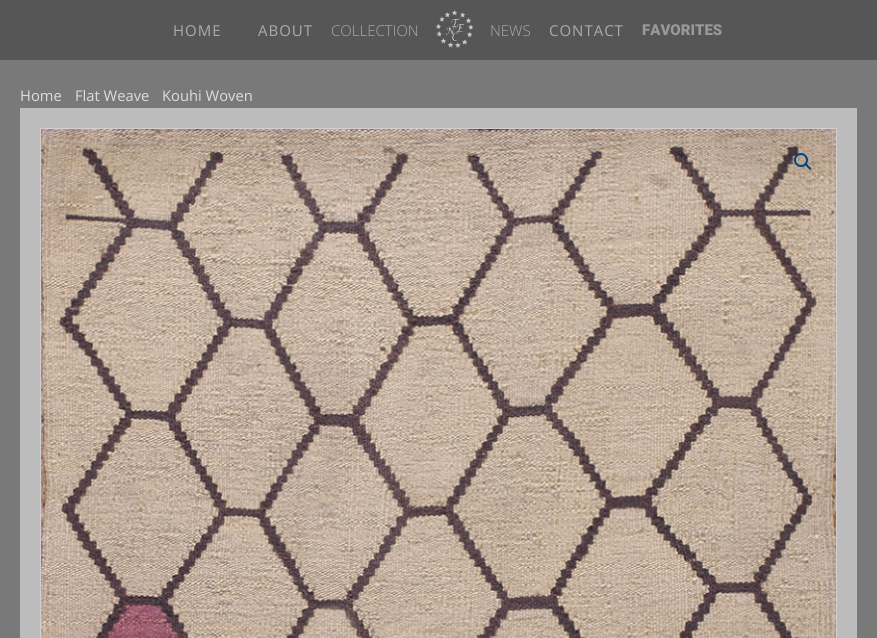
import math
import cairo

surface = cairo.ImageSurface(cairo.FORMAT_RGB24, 877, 638)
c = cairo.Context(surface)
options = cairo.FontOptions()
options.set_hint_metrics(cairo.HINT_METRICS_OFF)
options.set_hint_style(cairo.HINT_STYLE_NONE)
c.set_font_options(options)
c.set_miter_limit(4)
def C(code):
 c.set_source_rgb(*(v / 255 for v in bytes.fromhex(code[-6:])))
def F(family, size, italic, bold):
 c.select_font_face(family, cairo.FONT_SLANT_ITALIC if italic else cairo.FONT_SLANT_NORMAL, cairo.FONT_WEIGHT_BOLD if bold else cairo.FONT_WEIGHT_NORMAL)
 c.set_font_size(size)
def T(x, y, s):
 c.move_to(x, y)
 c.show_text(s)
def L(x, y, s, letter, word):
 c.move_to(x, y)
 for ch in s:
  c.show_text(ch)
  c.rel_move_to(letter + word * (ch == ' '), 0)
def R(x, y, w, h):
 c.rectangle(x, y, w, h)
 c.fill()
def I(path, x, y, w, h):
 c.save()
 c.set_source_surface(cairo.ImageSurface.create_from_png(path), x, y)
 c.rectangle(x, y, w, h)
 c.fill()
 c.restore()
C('565656')
c.paint()
F('Open Sans',15,0,0)
C('ababab')
L(173,36,'HOME',1,0)
L(258,36,'ABOUT',1,0)
F('Open Sans Light',15,0,0)
T(331,36,'COLLECTION')
I('1.png',436,10,37,38)
T(490,36,'NEWS')
F('Open Sans',15,0,0)
L(549,36,'CONTACT',1,0)
F('Roboto Black',15,0,0)
C('999999')
T(642,35,'FAVORITES')
C('7a7979')
R(0,60,877,578)
F('Open Sans',14.75,0,0)
C('dddddd')
T(20,101,'Home')
T(75,101,'Flat Weave')
T(162,101,'Kouhi Woven')
C('bcbcbc')
R(20,108,837,530)
c.rectangle(40.5,128.5,796,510)
C('d3ced2')
c.set_line_width(1)
c.stroke()
I('2.png',41,129,795,509)
c.arc(801,160,6,0,2 * math.pi)
C('004482')
c.set_line_width(2)
c.stroke()
c.new_path()
c.move_to(805,163.5)
c.curve_to(806.5,162.5,808,165,808.5,166)
c.curve_to(809.5,166.5,812,168,811,169.5)
c.curve_to(809.5,170.5,808,168,807.5,167.5)
c.curve_to(806.5,166.5,804,165,805,163.5)
c.close_path()
c.fill()
surface.write_to_png('o.png')
